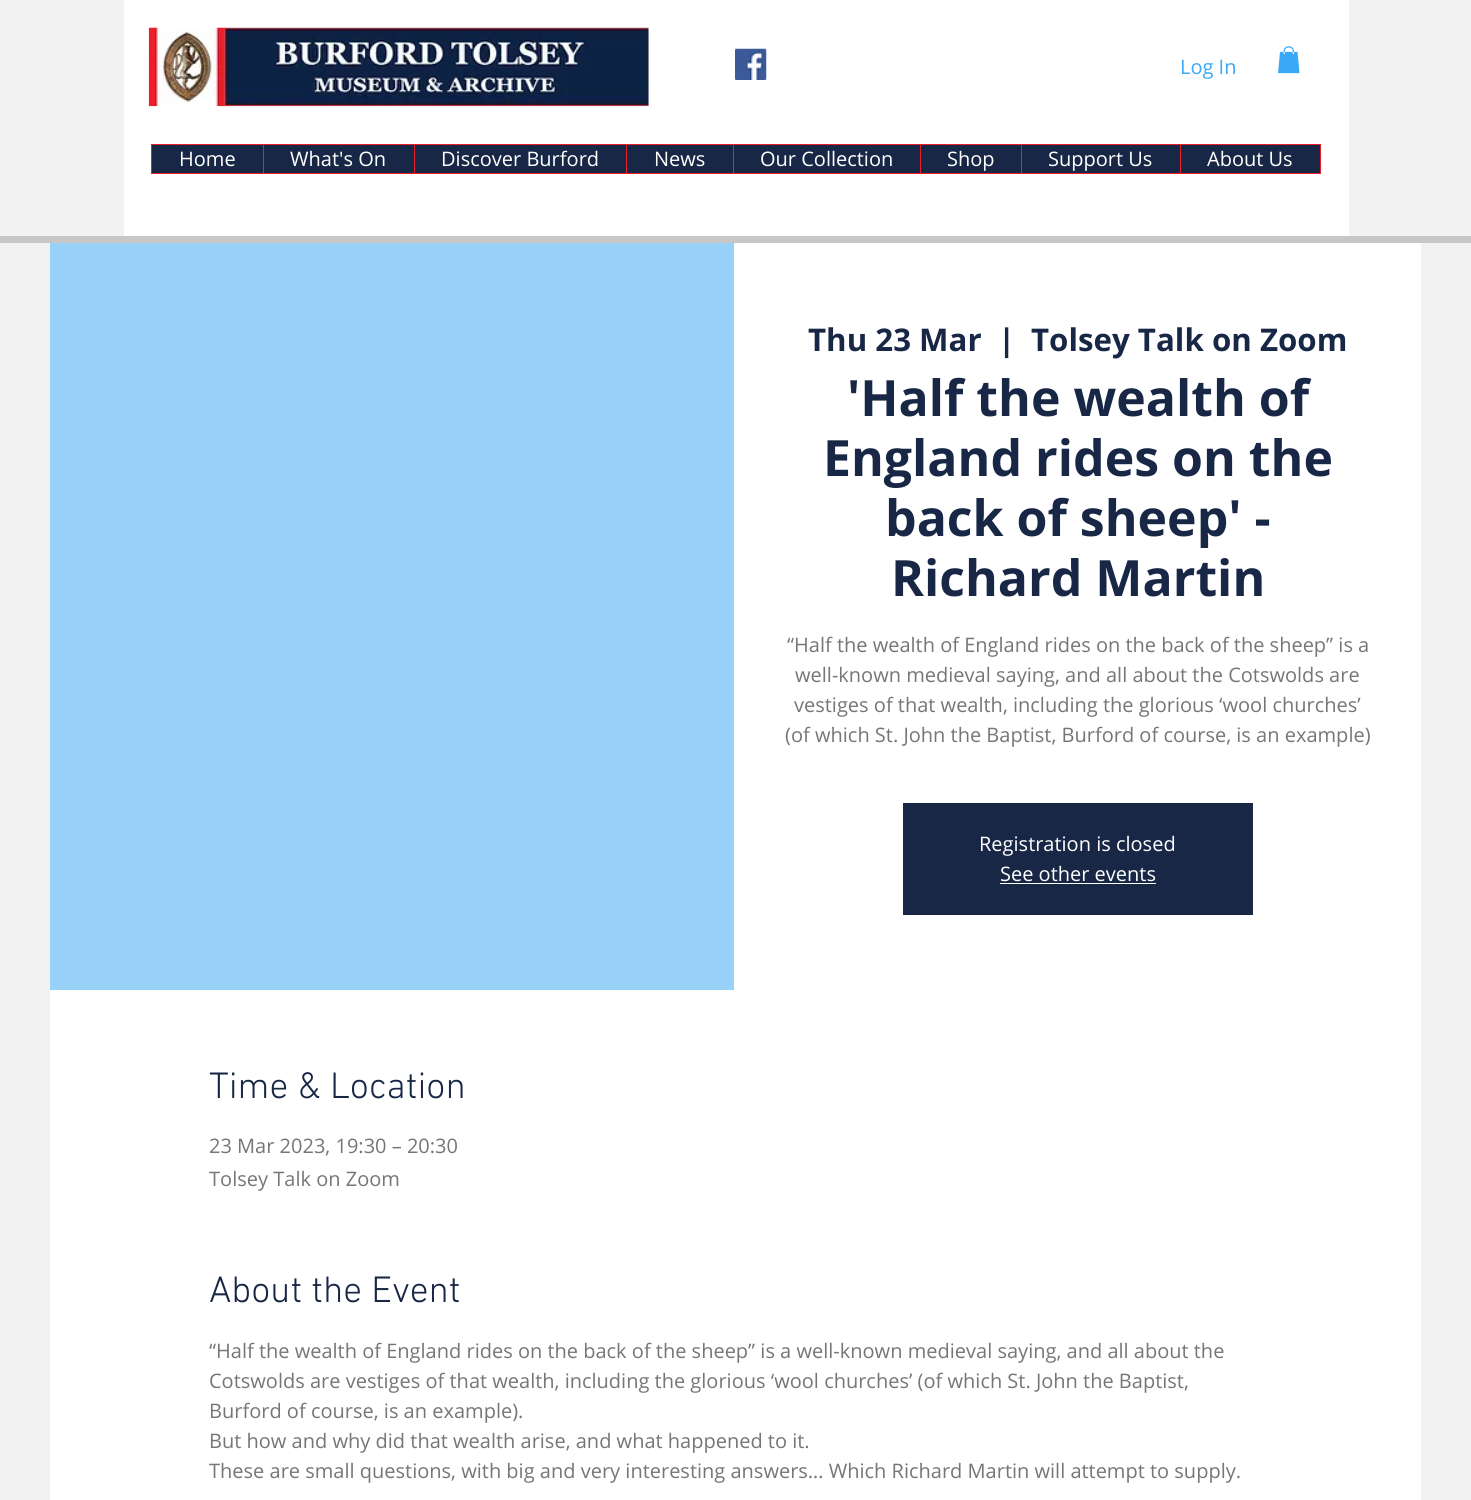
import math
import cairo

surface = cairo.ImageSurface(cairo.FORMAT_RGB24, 1471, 1500)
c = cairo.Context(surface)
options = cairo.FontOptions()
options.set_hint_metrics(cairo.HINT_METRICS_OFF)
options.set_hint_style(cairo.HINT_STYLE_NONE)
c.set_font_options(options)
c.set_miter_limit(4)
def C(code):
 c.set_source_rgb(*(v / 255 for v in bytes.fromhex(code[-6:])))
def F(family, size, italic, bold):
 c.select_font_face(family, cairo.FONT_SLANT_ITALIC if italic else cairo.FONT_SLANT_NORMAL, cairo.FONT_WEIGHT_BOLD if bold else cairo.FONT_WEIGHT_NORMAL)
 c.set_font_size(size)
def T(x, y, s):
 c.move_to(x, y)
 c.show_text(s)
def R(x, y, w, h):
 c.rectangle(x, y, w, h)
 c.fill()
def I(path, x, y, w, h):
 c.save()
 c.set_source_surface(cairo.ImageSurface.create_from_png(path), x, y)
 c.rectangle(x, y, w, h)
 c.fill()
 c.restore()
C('f2f2f2')
c.paint()
C('ffffff')
R(124,0,1225,236)
I('1.png',148,27,501,80)
I('2.png',735,48,32,32)
F('Open Sans',20,0,0)
C('39a8f6')
T(1180,74,'Log In')
I('3.png',1278,46,22,28)
C('192746')
c.rectangle(151.5,144.5,1169,29)
c.fill_preserve()
C('ec1d26')
c.set_line_width(1)
c.stroke()
C('ffffff')
T(179,166,'Home')
C('ec1d26')
R(263,145,1,28)
C('ffffff')
T(290,166,'What\'s On')
C('ec1d26')
R(414,145,1,28)
C('ffffff')
T(441,166,'Discover Burford')
C('ec1d26')
R(626,145,1,28)
C('ffffff')
T(654,166,'News')
C('ec1d26')
R(733,145,1,28)
C('ffffff')
T(760,166,'Our Collection')
C('ec1d26')
R(920,145,1,28)
C('ffffff')
T(947,166,'Shop')
C('ec1d26')
R(1021,145,1,28)
C('ffffff')
T(1048,166,'Support Us')
C('ec1d26')
R(1180,145,1,28)
C('ffffff')
T(1207,166,'About Us')
C('c7c7c7')
R(0,236,1471,7)
C('ffffff')
R(50,243,1371,1257)
C('99d2f9')
R(50,243,684,747)
F('Open Sans',31.25,0,1)
C('192746')
T(808,351,'Thu 23 Mar')
T(998,351,'|')
T(1031,351,'Tolsey Talk on Zoom')
F('Open Sans',50,0,1)
T(847,416,'\'Half the wealth of')
T(823,476,'England rides on the')
T(885,536,'back of sheep\' -')
T(891,596,'Richard Martin')
F('Open Sans',20,0,0)
C('767676')
T(787,652,'“Half the wealth of England rides on the back of the sheep” is a')
T(795,682,'well-known medieval saying, and all about the Cotswolds are')
T(794,712,'vestiges of that wealth, including the glorious ‘wool churches’')
T(785,742,'(of which St. John the Baptist, Burford of course, is an example)')
C('192746')
R(903,803,350,112)
C('ffffff')
T(979,851,'Registration is closed')
T(1000,881,'See other events')
R(1000,883,156,1)
F('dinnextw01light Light',37.5,0,0)
C('192746')
T(209,1098,'Time & Location')
F('Open Sans',20,0,0)
C('767676')
T(209,1153,'23 Mar 2023, 19:30 – 20:30')
T(209,1186,'Tolsey Talk on Zoom')
F('dinnextw01light Light',37.5,0,0)
C('192746')
T(209,1302,'About the Event')
F('Open Sans',20,0,0)
C('767676')
T(209,1358,'“Half the wealth of England rides on the back of the sheep” is a well-known medieval saying, and all about the')
T(209,1388,'Cotswolds are vestiges of that wealth, including the glorious ‘wool churches’ (of which St. John the Baptist,')
T(209,1418,'Burford of course, is an example).')
T(209,1448,'But how and why did that wealth arise, and what happened to it.')
T(209,1478,'These are small questions, with big and very interesting answers… Which Richard Martin will attempt to supply.')
surface.write_to_png('o.png')
